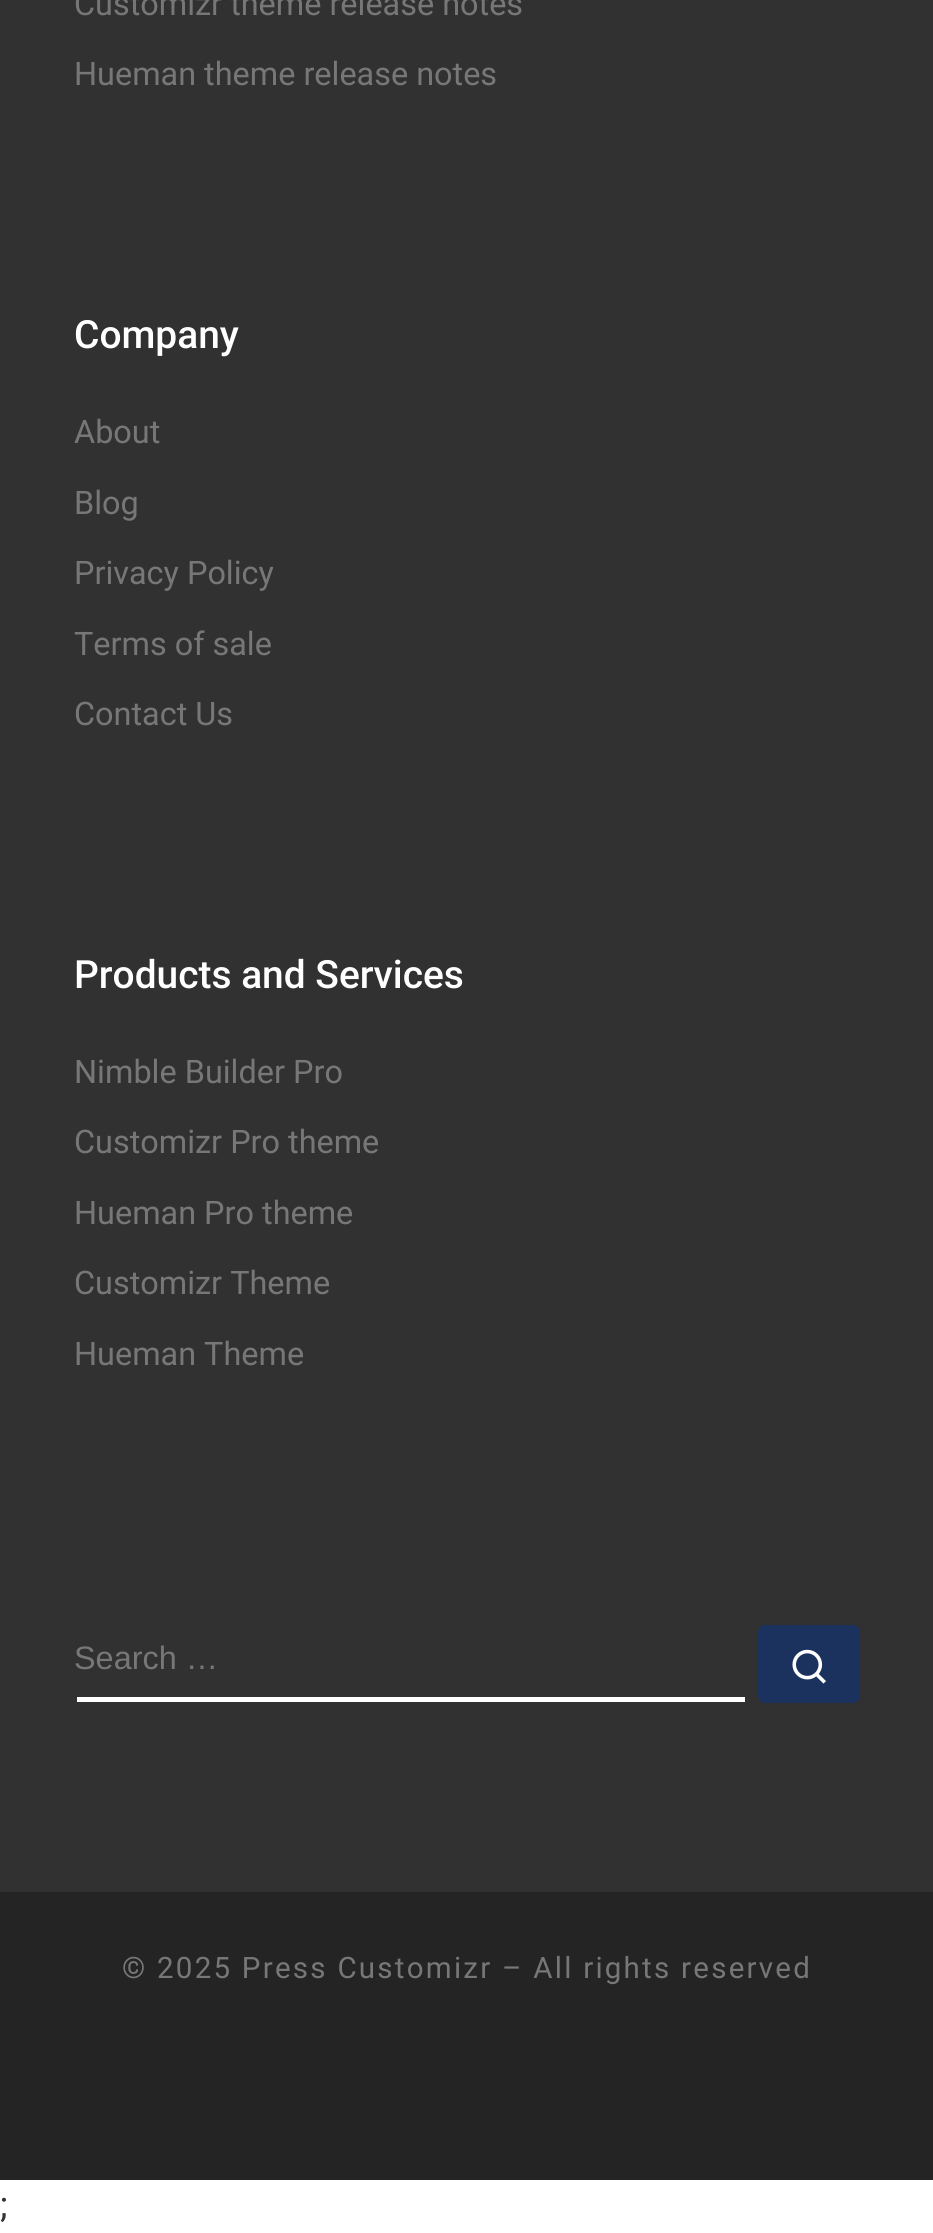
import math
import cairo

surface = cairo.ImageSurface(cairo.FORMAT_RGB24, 933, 2233)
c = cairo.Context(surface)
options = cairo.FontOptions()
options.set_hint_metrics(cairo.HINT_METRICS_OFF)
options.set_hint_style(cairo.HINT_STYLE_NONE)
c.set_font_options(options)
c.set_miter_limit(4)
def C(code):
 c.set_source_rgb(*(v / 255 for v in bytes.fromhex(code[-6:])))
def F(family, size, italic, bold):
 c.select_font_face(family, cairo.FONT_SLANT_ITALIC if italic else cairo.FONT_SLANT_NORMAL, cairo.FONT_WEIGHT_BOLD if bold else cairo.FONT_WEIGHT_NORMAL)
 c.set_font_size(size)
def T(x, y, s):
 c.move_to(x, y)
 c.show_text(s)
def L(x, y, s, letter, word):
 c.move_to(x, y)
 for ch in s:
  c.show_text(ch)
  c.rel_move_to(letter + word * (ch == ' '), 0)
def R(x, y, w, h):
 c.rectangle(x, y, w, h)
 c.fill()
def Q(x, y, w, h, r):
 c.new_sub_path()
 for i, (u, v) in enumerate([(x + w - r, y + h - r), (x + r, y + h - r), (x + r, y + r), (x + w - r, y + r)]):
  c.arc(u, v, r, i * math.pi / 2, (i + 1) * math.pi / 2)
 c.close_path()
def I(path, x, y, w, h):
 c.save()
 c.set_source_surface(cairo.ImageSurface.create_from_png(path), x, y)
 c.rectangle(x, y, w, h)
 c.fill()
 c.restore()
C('ffffff')
c.paint()
C('313131')
R(0,0,933,1892)
F('Roboto',32.4,0,0)
C('777777')
T(74,15,'Customizr theme release notes')
T(74,85,'Hueman theme release notes')
F('Roboto Medium',38.9,0,0)
C('ffffff')
T(74,348,'Company')
F('Roboto',32.4,0,0)
C('777777')
T(74,443,'About')
T(74,514,'Blog')
T(74,584,'Privacy Policy')
T(74,655,'Terms of sale')
T(74,725,'Contact Us')
F('Roboto Medium',38.9,0,0)
C('ffffff')
T(74,988,'Products and Services')
F('Roboto',32.4,0,0)
C('777777')
T(74,1083,'Nimble Builder Pro')
T(74,1153,'Customizr Pro theme')
T(74,1224,'Hueman Pro theme')
T(74,1294,'Customizr Theme')
T(74,1365,'Hueman Theme')
C('ffffff')
R(77,1697,668,5)
F('Liberation Sans',32.4,0,0)
C('777777')
T(74,1669,'Search …')
C('1b315e')
Q(760.5,1627.5,97,73,4.5)
c.fill_preserve()
c.set_line_width(5)
c.stroke()
I('1.png',792,1649,34,35)
C('242424')
R(0,1892,933,288)
F('Roboto',29.5,0,0)
C('777777')
L(122,1978,'© 2025 Press Customizr – All rights reserved',2.25,0)
F('Roboto',36,0,0)
C('333333')
T(0,2217,';')
surface.write_to_png('o.png')
